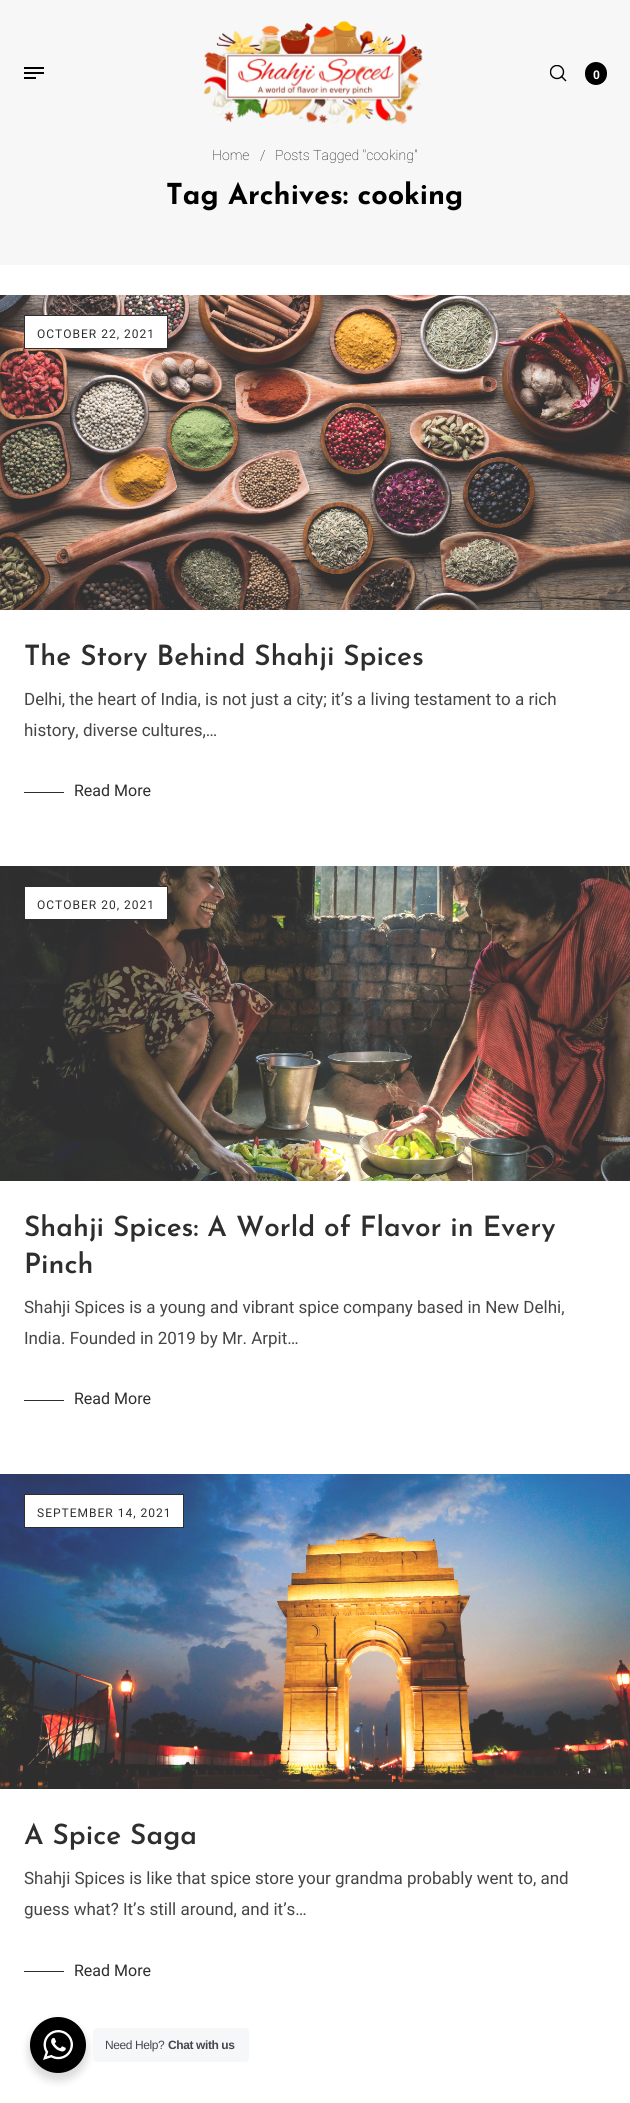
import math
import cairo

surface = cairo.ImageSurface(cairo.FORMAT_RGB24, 630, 2103)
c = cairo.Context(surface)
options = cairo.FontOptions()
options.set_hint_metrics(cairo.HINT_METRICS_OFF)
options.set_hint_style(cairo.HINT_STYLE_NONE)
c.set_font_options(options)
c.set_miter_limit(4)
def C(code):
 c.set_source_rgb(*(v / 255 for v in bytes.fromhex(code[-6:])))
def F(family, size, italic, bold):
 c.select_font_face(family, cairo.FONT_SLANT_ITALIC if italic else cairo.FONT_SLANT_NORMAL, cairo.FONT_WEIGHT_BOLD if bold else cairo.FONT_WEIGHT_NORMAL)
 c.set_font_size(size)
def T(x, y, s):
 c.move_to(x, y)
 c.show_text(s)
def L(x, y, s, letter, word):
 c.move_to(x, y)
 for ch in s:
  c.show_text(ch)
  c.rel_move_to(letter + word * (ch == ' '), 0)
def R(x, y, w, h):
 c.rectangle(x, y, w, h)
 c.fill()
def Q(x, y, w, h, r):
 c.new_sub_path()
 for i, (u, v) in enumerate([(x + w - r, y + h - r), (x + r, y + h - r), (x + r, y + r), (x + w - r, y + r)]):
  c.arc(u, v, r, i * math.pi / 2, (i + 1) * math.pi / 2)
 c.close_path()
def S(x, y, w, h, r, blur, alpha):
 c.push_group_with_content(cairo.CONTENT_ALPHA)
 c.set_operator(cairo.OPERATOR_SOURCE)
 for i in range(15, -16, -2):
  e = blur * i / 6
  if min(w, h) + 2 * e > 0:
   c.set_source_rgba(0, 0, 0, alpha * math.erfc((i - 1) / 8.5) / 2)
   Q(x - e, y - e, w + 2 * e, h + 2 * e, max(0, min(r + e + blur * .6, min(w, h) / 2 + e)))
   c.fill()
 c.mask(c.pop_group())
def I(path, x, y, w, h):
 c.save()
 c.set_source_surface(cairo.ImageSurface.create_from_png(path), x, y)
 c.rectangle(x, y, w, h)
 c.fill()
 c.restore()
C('ffffff')
c.paint()
C('f7f7f7')
R(0,0,630,265)
C('000000')
R(24,67,20,2)
R(24,72,20,2)
R(24,77,12,2)
I('1.png',203,20,220,105)
c.new_path()
c.move_to(565.5,80.5)
c.line_to(561.5,76.5)
c.set_line_width(1.4)
c.set_line_cap(cairo.LINE_CAP_SQUARE)
c.stroke()
c.save()
c.rectangle(550,65,17,17)
c.clip()
c.arc(557,72,6.5,0,2 * math.pi)
c.set_line_cap(cairo.LINE_CAP_BUTT)
c.stroke()
c.restore()
Q(585,62,22,23,11)
c.fill()
F('Roboto',12,0,1)
C('ffffff')
T(593,79,'0')
F('Roboto Thin',14.1,0,0)
C('000000')
T(212,160,'Home')
T(260,160,'/')
T(275,160,'Posts Tagged "cooking"')
F('Josefin Sans',28.75,0,1)
T(166,204,'Tag Archives: cooking')
I('2.png',0,295,630,315)
C('ffffff')
c.rectangle(24.5,315.5,143,33)
c.fill_preserve()
C('2e2e2e')
c.set_line_width(1)
c.set_line_cap(cairo.LINE_CAP_BUTT)
c.stroke()
F('Roboto',12,0,0)
L(37,338,'OCTOBER 22, 2021',1,0)
F('Josefin Sans SemiBold',28,0,0)
T(24,665,'The Story Behind Shahji Spices')
F('Roboto',17,0,0)
C('454545')
T(24,705,'Delhi, the heart of India, is not just a city; it’s a living testament to a rich')
T(24,736,'history, diverse cultures,…')
C('2e2e2e')
R(24,792,40,1)
F('Roboto',16,0,0)
T(74,796,'Read More')
I('3.png',0,866,630,315)
C('ffffff')
c.rectangle(24.5,886.5,143,33)
c.fill_preserve()
C('2e2e2e')
c.stroke()
F('Roboto',12,0,0)
L(37,909,'OCTOBER 20, 2021',1,0)
F('Josefin Sans SemiBold',28,0,0)
T(24,1236,'Shahji Spices: A World of Flavor in Every')
T(24,1273,'Pinch')
F('Roboto',17,0,0)
C('454545')
T(24,1313,'Shahji Spices is a young and vibrant spice company based in New Delhi,')
T(24,1344,'India. Founded in 2019 by Mr. Arpit…')
C('2e2e2e')
R(24,1400,40,1)
F('Roboto',16,0,0)
T(74,1404,'Read More')
I('4.png',0,1474,630,315)
C('ffffff')
c.rectangle(24.5,1494.5,159,33)
c.fill_preserve()
C('2e2e2e')
c.stroke()
F('Roboto',12,0,0)
L(37,1517,'SEPTEMBER 14, 2021',1,0)
F('Josefin Sans SemiBold',28,0,0)
T(24,1844,'A Spice Saga')
F('Roboto',17,0,0)
C('454545')
T(24,1884,'Shahji Spices is like that spice store your grandma probably went to, and')
T(24,1915,'guess what? It’s still around, and it’s…')
C('2e2e2e')
R(24,1971,40,1)
F('Roboto',16,0,0)
T(74,1976,'Read More')
C('000000')
S(28,2021,60,60,30,4,.14)
C('000000')
c.arc(58,2045,28,0,2 * math.pi)
c.fill()
I('5.png',43,2030,30,30)
C('f5f7f9')
Q(93,2028,156,34,4)
c.fill()
F('Liberation Sans',12,0,0)
C('43474e')
L(105,2049,'Need Help?',-.4,0)
F('Liberation Sans',12,0,1)
L(168,2049,'Chat with us',-.4,0)
surface.write_to_png('o.png')
